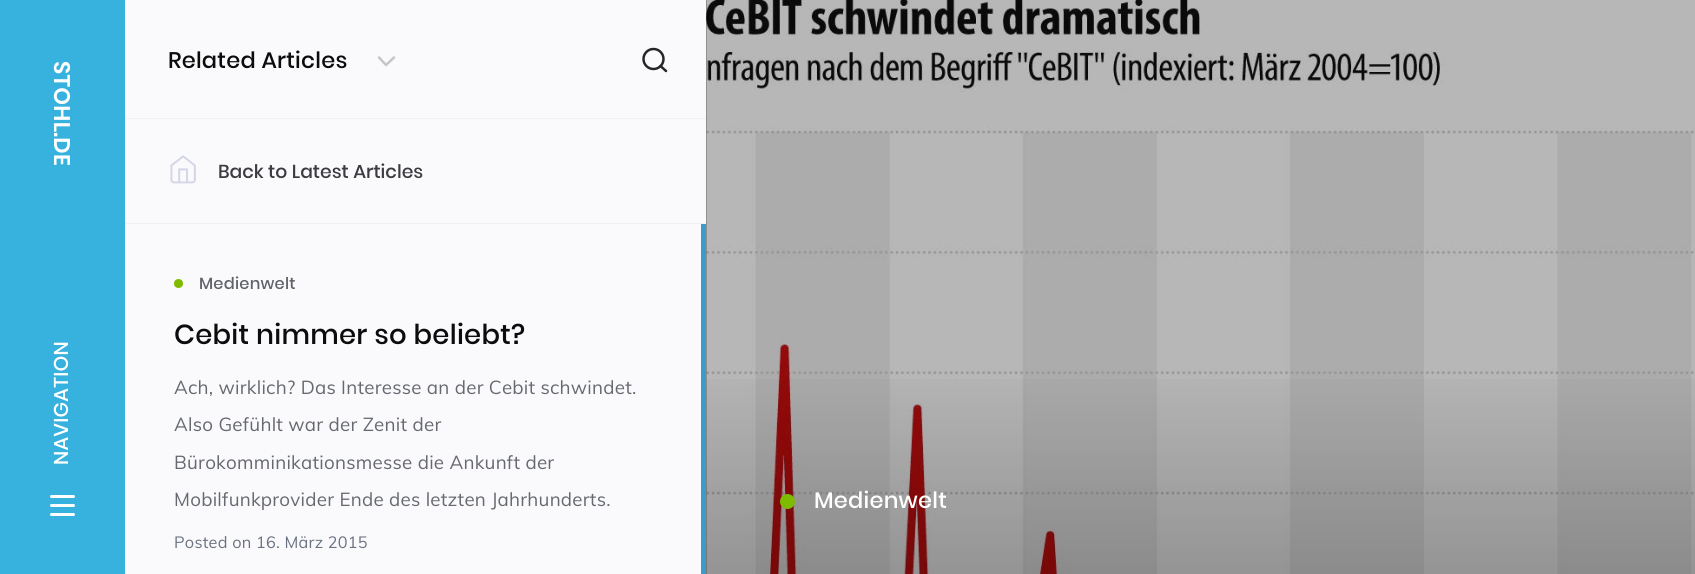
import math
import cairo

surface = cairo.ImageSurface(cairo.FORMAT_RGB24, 1695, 574)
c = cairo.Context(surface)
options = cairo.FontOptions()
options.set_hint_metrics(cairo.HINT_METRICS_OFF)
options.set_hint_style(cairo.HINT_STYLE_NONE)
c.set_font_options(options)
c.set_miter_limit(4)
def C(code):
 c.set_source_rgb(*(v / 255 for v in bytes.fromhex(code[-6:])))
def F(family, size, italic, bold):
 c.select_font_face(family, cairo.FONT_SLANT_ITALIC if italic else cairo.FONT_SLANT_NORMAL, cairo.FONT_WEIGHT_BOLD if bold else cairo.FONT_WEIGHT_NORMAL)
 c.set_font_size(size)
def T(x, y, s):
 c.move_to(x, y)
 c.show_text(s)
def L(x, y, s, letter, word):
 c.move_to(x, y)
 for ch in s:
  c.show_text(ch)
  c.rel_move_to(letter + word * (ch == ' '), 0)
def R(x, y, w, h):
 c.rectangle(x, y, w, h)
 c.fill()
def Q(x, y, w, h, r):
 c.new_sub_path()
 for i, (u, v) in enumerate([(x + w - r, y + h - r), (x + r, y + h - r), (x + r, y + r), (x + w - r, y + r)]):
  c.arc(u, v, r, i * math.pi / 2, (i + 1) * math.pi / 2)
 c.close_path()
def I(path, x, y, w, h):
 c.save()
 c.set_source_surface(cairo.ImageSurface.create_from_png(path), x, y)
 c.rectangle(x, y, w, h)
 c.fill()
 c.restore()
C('1d1d1f')
c.paint()
C('37b1dd')
R(0,0,125,574)
F('Poppins SemiBold',22.5,0,0)
C('ffffff')
c.save()
c.translate(54,61)
c.rotate(90 * math.pi / 180)
L(0,0,'STOHL.DE',.25,0)
c.restore()
F('Poppins Medium',20,0,0)
c.save()
c.translate(68,465)
c.rotate(-90 * math.pi / 180)
L(0,0,'NAVIGATION',.25,0)
c.restore()
Q(50,495,25,3,1.5)
c.fill()
Q(50,504,25,3,1.5)
c.fill()
Q(50,513,25,3,1.5)
c.fill()
C('fafafc')
R(125,0,581,118)
F('Poppins Medium',22.5,0,0)
C('0c0c0c')
L(168,68,'Related Articles',.25,0)
c.new_path()
c.move_to(379,57.5)
c.line_to(386,65)
c.line_to(394,57.5)
C('c6c6c6')
c.set_line_width(2.5)
c.set_line_cap(cairo.LINE_CAP_ROUND)
c.set_line_join(cairo.LINE_JOIN_ROUND)
c.stroke()
c.arc(653.5,59,10,0,2 * math.pi)
C('242628')
c.set_line_cap(cairo.LINE_CAP_BUTT)
c.set_line_join(cairo.LINE_JOIN_MITER)
c.stroke()
c.new_path()
c.move_to(666,71)
c.line_to(660.5,66)
c.set_line_cap(cairo.LINE_CAP_ROUND)
c.set_line_join(cairo.LINE_JOIN_ROUND)
c.stroke()
C('fafafc')
R(125,119,581,104)
C('f1f1f1')
R(125,118,581,1)
R(125,223,581,1)
I('1.png',170,155,26,29)
F('Poppins Medium',18.75,0,0)
C('3b3b40')
T(218,178,'Back to Latest Articles')
C('fafafc')
R(125,224,576,350)
C('7fbb00')
c.new_path()
c.arc(178.5,283.5,4.5,0,2 * math.pi)
c.fill()
F('Poppins Medium',16.25,0,0)
C('61626a')
L(199,289,'Medienwelt',.25,0)
F('Poppins Medium',27.5,0,0)
C('0c0c0c')
L(174,344,'Cebit nimmer so beliebt?',.25,0)
F('Muli',18.75,0,0)
C('66696f')
L(174,394,'Ach, wirklich? Das Interesse an der Cebit schwindet.',.25,0)
L(174,431,'Also Gefühlt war der Zenit der',.25,0)
L(174,469,'Bürokomminikationsmesse die Ankunft der',.25,0)
L(174,506,'Mobilfunkprovider Ende des letzten Jahrhunderts.',.25,0)
F('Muli',16.25,0,0)
C('6a7281')
L(174,548,'Posted on 16. März 2015',.25,0)
C('3e9bc9')
R(701,224,5,350)
I('2.png',706,0,989,574)
gradient = cairo.LinearGradient(1201,-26,1201,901)
gradient.add_color_stop_rgba(.41,0,0,0,0)
gradient.add_color_stop_rgba(.91,0,0,0,.4)
c.set_source(gradient)
R(706,379,989,195)
C('7fbb00')
c.arc(787.5,501.5,7.5,0,2 * math.pi)
c.fill()
F('Poppins Medium',22.5,0,0)
C('ffffff')
L(814,508,'Medienwelt',.25,0)
surface.write_to_png('o.png')
